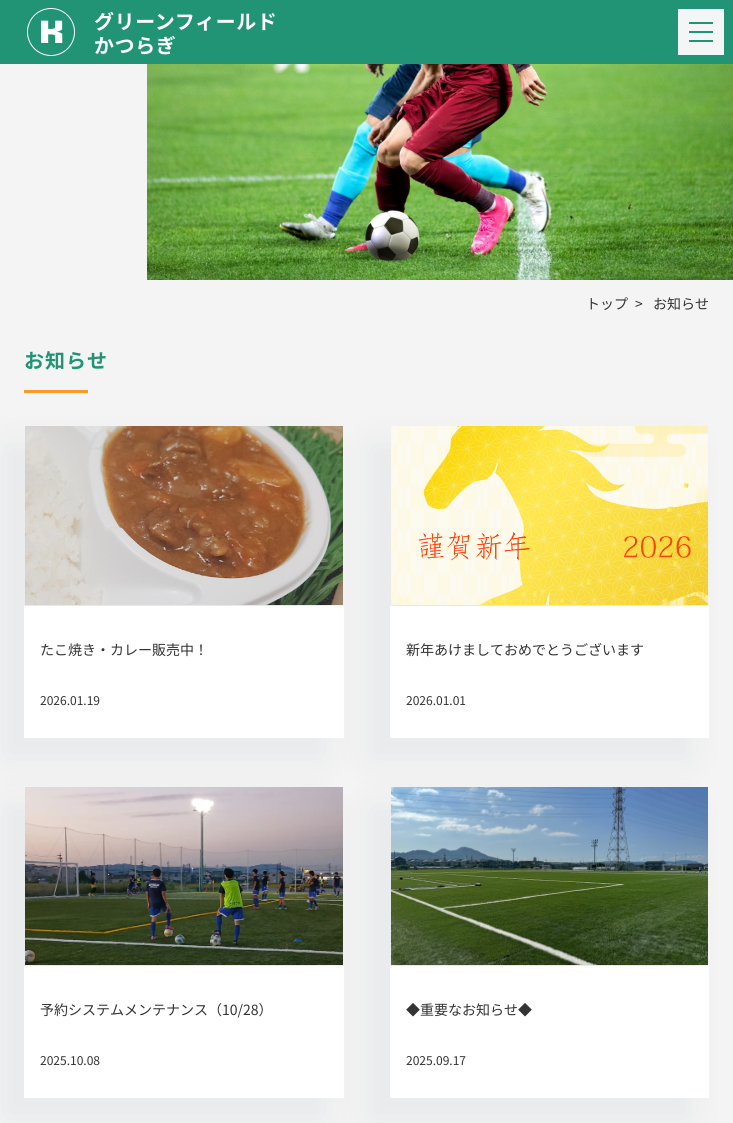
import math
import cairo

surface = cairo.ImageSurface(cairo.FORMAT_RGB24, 733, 1123)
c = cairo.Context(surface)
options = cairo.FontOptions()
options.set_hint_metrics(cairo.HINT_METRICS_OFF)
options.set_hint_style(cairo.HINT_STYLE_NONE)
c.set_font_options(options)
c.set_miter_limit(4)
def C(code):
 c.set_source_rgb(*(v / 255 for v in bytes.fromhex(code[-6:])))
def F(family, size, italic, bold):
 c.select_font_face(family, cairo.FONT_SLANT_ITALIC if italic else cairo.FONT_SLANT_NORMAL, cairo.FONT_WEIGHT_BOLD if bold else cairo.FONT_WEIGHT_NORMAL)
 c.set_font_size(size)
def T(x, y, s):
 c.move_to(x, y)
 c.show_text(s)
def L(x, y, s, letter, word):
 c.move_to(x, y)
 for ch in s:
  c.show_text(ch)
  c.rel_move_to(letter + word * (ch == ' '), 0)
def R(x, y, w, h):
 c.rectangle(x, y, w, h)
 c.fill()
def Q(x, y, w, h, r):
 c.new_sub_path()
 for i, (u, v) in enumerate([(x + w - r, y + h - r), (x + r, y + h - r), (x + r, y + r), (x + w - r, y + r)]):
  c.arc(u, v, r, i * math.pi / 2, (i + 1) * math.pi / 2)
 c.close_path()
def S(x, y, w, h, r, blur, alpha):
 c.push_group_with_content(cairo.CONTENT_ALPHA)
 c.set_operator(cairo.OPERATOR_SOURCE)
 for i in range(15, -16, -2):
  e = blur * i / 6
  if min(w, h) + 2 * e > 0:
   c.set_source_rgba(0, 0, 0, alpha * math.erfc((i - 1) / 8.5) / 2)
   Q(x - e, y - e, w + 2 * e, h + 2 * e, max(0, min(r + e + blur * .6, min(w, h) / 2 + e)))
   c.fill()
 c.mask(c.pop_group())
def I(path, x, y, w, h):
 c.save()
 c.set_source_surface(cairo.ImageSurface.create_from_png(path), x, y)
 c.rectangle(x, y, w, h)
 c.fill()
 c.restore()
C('f4f4f4')
c.paint()
C('219475')
R(0,0,733,64)
I('1.png',27,8,248,48)
C('f4f5f7')
R(678,9,46,46)
C('219475')
R(689,22,24,2)
R(689,31,24,2)
R(689,40,24,2)
I('2.png',147,64,586,216)
F('Noto Sans JP',14,0,0)
C('333333')
T(586,309,'トップ')
T(635,309,'>')
T(653,309,'お知らせ')
F('Noto Sans JP',20,0,1)
C('219475')
L(24,368,'お知らせ',1,0)
C('ff9925')
R(24,390,64,3)
C('072841')
S(4,445,320,313,0,20,.06)
I('3.png',25,426,318,179)
C('ffffff')
R(24,606,320,132)
F('Noto Sans JP',14,0,0)
C('333333')
T(40,655,'たこ焼き・カレー販売中！')
F('Noto Sans JP',12,0,0)
T(40,705,'2026.01.19')
C('072841')
S(370,445,319,313,0,20,.06)
I('4.png',391,426,317,179)
C('ffffff')
R(390,606,319,132)
F('Noto Sans JP',14,0,0)
C('333333')
T(406,655,'新年あけましておめでとうございます')
F('Noto Sans JP',12,0,0)
T(406,705,'2026.01.01')
C('072841')
S(4,806,320,312,0,20,.06)
I('5.png',25,787,318,178)
C('ffffff')
R(24,966,320,132)
F('Noto Sans JP',14,0,0)
C('333333')
T(40,1015,'予約システムメンテナンス（10/28）')
F('Noto Sans JP',12,0,0)
T(40,1065,'2025.10.08')
C('072841')
S(370,806,319,312,0,20,.06)
I('6.png',391,787,317,178)
C('ffffff')
R(390,966,319,132)
F('Noto Sans JP',14,0,0)
C('333333')
T(406,1015,'◆重要なお知らせ◆')
F('Noto Sans JP',12,0,0)
T(406,1065,'2025.09.17')
surface.write_to_png('o.png')
